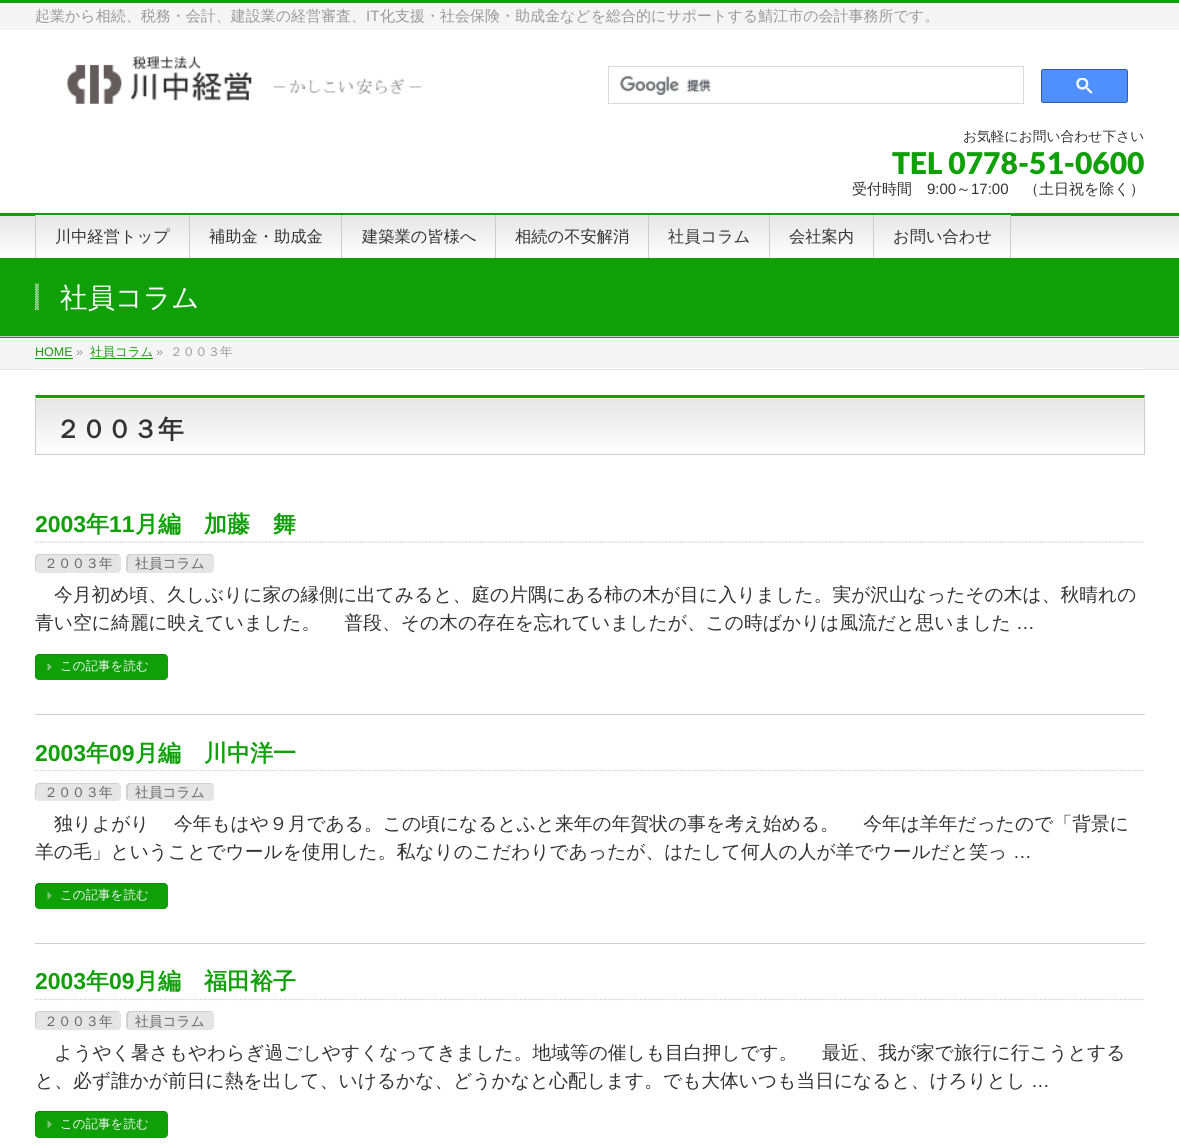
import math
import cairo

surface = cairo.ImageSurface(cairo.FORMAT_RGB24, 1179, 1147)
c = cairo.Context(surface)
options = cairo.FontOptions()
options.set_hint_metrics(cairo.HINT_METRICS_OFF)
options.set_hint_style(cairo.HINT_STYLE_NONE)
c.set_font_options(options)
c.set_miter_limit(4)
def C(code):
 c.set_source_rgb(*(v / 255 for v in bytes.fromhex(code[-6:])))
def F(family, size, italic, bold):
 c.select_font_face(family, cairo.FONT_SLANT_ITALIC if italic else cairo.FONT_SLANT_NORMAL, cairo.FONT_WEIGHT_BOLD if bold else cairo.FONT_WEIGHT_NORMAL)
 c.set_font_size(size)
def T(x, y, s):
 c.move_to(x, y)
 c.show_text(s)
def R(x, y, w, h):
 c.rectangle(x, y, w, h)
 c.fill()
def Q(x, y, w, h, r):
 c.new_sub_path()
 for i, (u, v) in enumerate([(x + w - r, y + h - r), (x + r, y + h - r), (x + r, y + r), (x + w - r, y + r)]):
  c.arc(u, v, r, i * math.pi / 2, (i + 1) * math.pi / 2)
 c.close_path()
def I(path, x, y, w, h):
 c.save()
 c.set_source_surface(cairo.ImageSurface.create_from_png(path), x, y)
 c.rectangle(x, y, w, h)
 c.fill()
 c.restore()
C('ffffff')
c.paint()
C('f5f5f5')
R(0,3,1179,27)
C('0fa008')
R(0,0,1179,3)
F('WenQuanYi Zen Hei Medium',15,0,0)
C('999999')
T(35,21,'起業から相続、税務・会計、建設業の経営審査、')
F('Liberation Sans',15,0,0)
T(366,21,'IT')
F('WenQuanYi Zen Hei Medium',15,0,0)
T(380,21,'化支援・社会保険・助成金などを総合的にサポートする鯖江市の会計事務所です。')
I('1.png',67,56,355,48)
c.rectangle(608.5,66.5,415,37)
C('d9d9d9')
c.set_line_width(1)
c.stroke()
I('2.png',620,76,91,19)
C('4d90fe')
Q(1041.5,69.5,86,33,2)
c.fill_preserve()
C('2f5bb7')
c.stroke()
I('3.png',1076,78,17,16)
F('WenQuanYi Zen Hei Medium',13.75,0,0)
C('333333')
T(963,141,'お気軽にお問い合わせ下さい')
F('Lato Black',30,0,0)
C('0fa008')
T(892,174,'TEL 0778-51-0600')
F('WenQuanYi Zen Hei Medium',15,0,0)
C('333333')
T(852,194,'受付時間')
F('Liberation Sans',15,0,0)
T(927,194,'9:00')
F('WenQuanYi Zen Hei Medium',15,0,0)
T(956,194,'～')
F('Liberation Sans',15,0,0)
T(971,194,'17:00')
F('WenQuanYi Zen Hei Medium',15,0,0)
T(1024,194,'（土日祝を除く）')
gradient = cairo.LinearGradient(590,215,590,258)
gradient.add_color_stop_rgba(0,0.898,0.898,0.898,1)
gradient.add_color_stop_rgba(1,1,1,1,1)
c.set_source(gradient)
R(0,216,1179,38)
C('0fa008')
R(0,213,1179,3)
C('cccccc')
R(35,215,1,43)
C('ffffff')
R(36,215,153,1)
C('cccccc')
R(189,215,1,43)
F('WenQuanYi Zen Hei Medium',16.25,0,0)
C('333333')
T(55,242,'川中経営トップ')
gradient = cairo.LinearGradient(190,215,190,258)
gradient.add_color_stop_rgba(0,0.898,0.898,0.898,1)
gradient.add_color_stop_rgba(1,1,1,1,1)
c.set_source(gradient)
R(190,215,153,1)
C('ffffff')
R(190,215,151,1)
C('cccccc')
R(341,215,1,43)
C('333333')
T(209,242,'補助金・助成金')
C('ffffff')
R(343,215,152,1)
C('cccccc')
R(495,215,1,43)
C('333333')
T(362,242,'建築業の皆様へ')
C('ffffff')
R(496,215,152,1)
C('cccccc')
R(648,215,1,43)
C('333333')
T(515,242,'相続の不安解消')
C('ffffff')
R(649,215,120,1)
C('cccccc')
R(769,215,1,43)
C('333333')
T(668,242,'社員コラム')
C('ffffff')
R(770,215,103,1)
C('cccccc')
R(873,215,1,43)
C('333333')
T(789,242,'会社案内')
C('ffffff')
R(874,215,136,1)
C('cccccc')
R(1010,215,1,43)
C('333333')
T(893,242,'お問い合わせ')
C('0fa008')
R(0,258,1179,80)
C('cccccc')
R(0,336,1179,1)
I('4.png',35,283,4,27)
F('WenQuanYi Zen Hei Medium',27.5,0,0)
C('ffffff')
T(60,307,'社員コラム')
C('f5f5f5')
R(0,338,1179,31)
C('e5e5e5')
R(0,369,1179,1)
C('ffffff')
R(35,368,1110,1)
F('Liberation Sans',12.5,0,0)
C('0fa008')
T(35,356,'HOME')
R(35,358,38,1)
C('999999')
T(76,356,'»')
F('WenQuanYi Zen Hei Medium',12.5,0,0)
C('0fa008')
T(90,356,'社員コラム')
R(90,358,63,1)
F('Liberation Sans',12.5,0,0)
C('999999')
T(156,356,'»')
F('WenQuanYi Zen Hei Medium',12.5,0,0)
T(170,356,'２００３年')
gradient = cairo.LinearGradient(36,398,36,454)
gradient.add_color_stop_rgba(0,0.898,0.898,0.898,1)
gradient.add_color_stop_rgba(1,1,1,1,1)
c.set_source(gradient)
R(36,399,1108,50)
C('0fa008')
c.new_path()
c.move_to(35,395)
c.line_to(1145,395)
c.line_to(1144,398)
c.line_to(36,398)
c.close_path()
c.fill()
C('cccccc')
c.new_path()
c.move_to(1145,395)
c.line_to(1145,455)
c.line_to(1144,454)
c.line_to(1144,398)
c.close_path()
c.fill()
R(35,454,1110,1)
c.new_path()
c.move_to(35,455)
c.line_to(35,395)
c.line_to(36,398)
c.line_to(36,454)
c.close_path()
c.fill()
F('WenQuanYi Zen Hei',25.75,0,1)
C('333333')
T(55,438,'２００３年')
C('cccccc')
R(35,714,1110,1)
c.new_path()
c.move_to(35,542)
c.line_to(1145,542)
c.set_line_width(1.2)
c.set_dash([1.25,1.25])
c.stroke()
F('Liberation Sans',23,0,1)
C('0fa008')
T(35,532,'2003')
F('WenQuanYi Zen Hei',23,0,1)
T(86,532,'年')
F('Liberation Sans',23,0,1)
T(109,532,'11')
F('WenQuanYi Zen Hei',23,0,1)
T(135,532,'月編　加藤　舞')
C('e5e5e5')
Q(35,554,86,19,4)
c.fill()
c.set_source_rgba(0,0,0,0.1)
c.new_path()
c.move_to(40,555)
c.line_to(120,555)
c.curve_to(119,554,118,554,117,554)
c.line_to(39,554)
c.curve_to(37,554,35,556,35,558)
c.line_to(35,569)
c.curve_to(35,570,36,572,37,572)
c.curve_to(35,570,36,567,36,564)
c.curve_to(36,561,35,555,40,555)
c.close_path()
c.fill()
F('WenQuanYi Zen Hei Medium',13.75,0,0)
C('666666')
T(44,568,'２００３年')
C('e5e5e5')
Q(126,554,88,19,4)
c.fill()
c.set_source_rgba(0,0,0,0.1)
c.new_path()
c.move_to(131,555)
c.line_to(211,555)
c.line_to(213,556)
c.curve_to(213,555,211,554,210,554)
c.line_to(130,554)
c.curve_to(128,554,126,556,126,558)
c.line_to(126,569)
c.curve_to(126,571,127,572,129,573)
c.curve_to(127,571,128,567,128,564)
c.curve_to(128,562,127,555,131,555)
c.close_path()
c.fill()
C('666666')
T(135,568,'社員コラム')
F('WenQuanYi Zen Hei Medium',18.75,0,0)
C('333333')
T(54,601,'今月初め頃、久しぶりに家の縁側に出てみると、庭の片隅にある柿の木が目に入りました。実が沢山なったその木は、秋晴れの')
T(35,629,'青い空に綺麗に映えていました。 　普段、その木の存在を忘れていましたが、この時ばかりは風流だと思いました')
F('Liberation Sans',18.75,0,0)
T(1016,629,'…')
C('0fa008')
Q(35,654,133,26,4)
c.fill()
I('5.png',47,663,5,7)
c.set_source_rgba(0,0,0,0.15)
c.new_path()
c.move_to(40,655)
c.line_to(165,655)
c.line_to(167,656)
c.curve_to(167,655,165,654,164,654)
c.line_to(39,654)
c.curve_to(37,654,35,656,35,658)
c.line_to(35,676)
c.curve_to(35,677,35,678,36,679)
c.line_to(36,668)
c.curve_to(36,665,34,655,40,655)
c.close_path()
c.fill()
F('WenQuanYi Zen Hei Medium',12.5,0,0)
C('f5f5f5')
T(60,670,'この記事を読む')
C('cccccc')
R(35,943,1110,1)
c.new_path()
c.move_to(35,770.5)
c.line_to(1145,770.5)
c.stroke()
F('Liberation Sans',23,0,1)
C('0fa008')
T(35,761,'2003')
F('WenQuanYi Zen Hei',23,0,1)
T(86,761,'年')
F('Liberation Sans',23,0,1)
T(109,761,'09')
F('WenQuanYi Zen Hei',23,0,1)
T(135,761,'月編　川中洋一')
C('e5e5e5')
Q(35,783,86,18,4)
c.fill()
c.set_source_rgba(0,0,0,0.1)
c.new_path()
c.move_to(40,784)
c.line_to(120,784)
c.line_to(117,783)
c.line_to(52,783)
c.curve_to(38,783,35,780,35,792)
c.curve_to(35,794,34,798,36,800)
c.line_to(36,794)
c.curve_to(36,790,35,784,40,784)
c.close_path()
c.fill()
F('WenQuanYi Zen Hei Medium',13.75,0,0)
C('666666')
T(44,797,'２００３年')
C('e5e5e5')
Q(126,783,88,18,4)
c.fill()
c.set_source_rgba(0,0,0,0.1)
c.new_path()
c.move_to(131,784)
c.line_to(211,784)
c.line_to(213,784)
c.curve_to(212,784,211,783,210,783)
c.line_to(130,783)
c.curve_to(128,783,126,785,126,787)
c.line_to(126,797)
c.curve_to(126,799,127,800,128,801)
c.line_to(128,794)
c.curve_to(128,791,127,784,131,784)
c.close_path()
c.fill()
C('666666')
T(135,797,'社員コラム')
F('WenQuanYi Zen Hei Medium',18.75,0,0)
C('333333')
T(54,830,'独りよがり 　今年もはや９月である。この頃になるとふと来年の年賀状の事を考え始める。 　今年は羊年だったので「背景に')
T(35,858,'羊の毛」ということでウールを使用した。私なりのこだわりであったが、はたして何人の人が羊でウールだと笑っ')
F('Liberation Sans',18.75,0,0)
T(1013,858,'…')
C('0fa008')
Q(35,883,133,26,4)
c.fill()
I('6.png',47,892,5,7)
c.set_source_rgba(0,0,0,0.15)
c.new_path()
c.move_to(40,884)
c.line_to(165,884)
c.line_to(167,884)
c.curve_to(166,884,165,883,164,883)
c.line_to(39,883)
c.curve_to(37,883,35,885,35,887)
c.line_to(35,905)
c.curve_to(35,906,36,908,37,908)
c.curve_to(35,906,36,900,36,897)
c.curve_to(36,893,34,884,40,884)
c.close_path()
c.fill()
F('WenQuanYi Zen Hei Medium',12.5,0,0)
C('f5f5f5')
T(60,899,'この記事を読む')
c.new_path()
c.move_to(35,999.5)
c.line_to(1145,999.5)
C('cccccc')
c.stroke()
F('Liberation Sans',23,0,1)
C('0fa008')
T(35,989,'2003')
F('WenQuanYi Zen Hei',23,0,1)
T(86,989,'年')
F('Liberation Sans',23,0,1)
T(109,989,'09')
F('WenQuanYi Zen Hei',23,0,1)
T(135,989,'月編　福田裕子')
C('e5e5e5')
Q(35,1011,86,19,4)
c.fill()
c.set_source_rgba(0,0,0,0.1)
c.new_path()
c.move_to(40,1012)
c.line_to(120,1012)
c.curve_to(119,1011,118,1011,117,1011)
c.line_to(39,1011)
c.curve_to(37,1011,35,1013,35,1015)
c.line_to(35,1026)
c.curve_to(35,1027,35,1028,36,1029)
c.line_to(36,1022)
c.curve_to(36,1019,35,1012,40,1012)
c.close_path()
c.fill()
F('WenQuanYi Zen Hei Medium',13.75,0,0)
C('666666')
T(44,1026,'２００３年')
C('e5e5e5')
Q(126,1011,88,19,4)
c.fill()
c.set_source_rgba(0,0,0,0.1)
c.new_path()
c.move_to(131,1012)
c.line_to(211,1012)
c.line_to(213,1013)
c.curve_to(213,1012,211,1011,210,1011)
c.line_to(130,1011)
c.curve_to(128,1011,126,1013,126,1015)
c.line_to(126,1026)
c.curve_to(126,1028,127,1029,128,1030)
c.line_to(128,1022)
c.curve_to(128,1020,127,1012,131,1012)
c.close_path()
c.fill()
C('666666')
T(135,1026,'社員コラム')
F('WenQuanYi Zen Hei Medium',18.75,0,0)
C('333333')
T(54,1059,'ようやく暑さもやわらぎ過ごしやすくなってきました。地域等の催しも目白押しです。 　最近、我が家で旅行に行こうとする')
T(35,1087,'と、必ず誰かが前日に熱を出して、いけるかな、どうかなと心配します。でも大体いつも当日になると、けろりとし')
F('Liberation Sans',18.75,0,0)
T(1031,1087,'…')
C('0fa008')
Q(35,1111,133,27,4)
c.fill()
I('7.png',47,1121,5,7)
c.set_source_rgba(0,0,0,0.15)
c.new_path()
c.move_to(40,1112)
c.line_to(165,1112)
c.line_to(167,1113)
c.curve_to(167,1112,165,1111,164,1111)
c.line_to(39,1111)
c.curve_to(37,1111,35,1113,35,1115)
c.line_to(35,1134)
c.curve_to(35,1135,36,1137,37,1137)
c.curve_to(35,1135,36,1128,36,1126)
c.curve_to(36,1122,34,1112,40,1112)
c.close_path()
c.fill()
F('WenQuanYi Zen Hei Medium',12.5,0,0)
C('f5f5f5')
T(60,1128,'この記事を読む')
surface.write_to_png('o.png')
